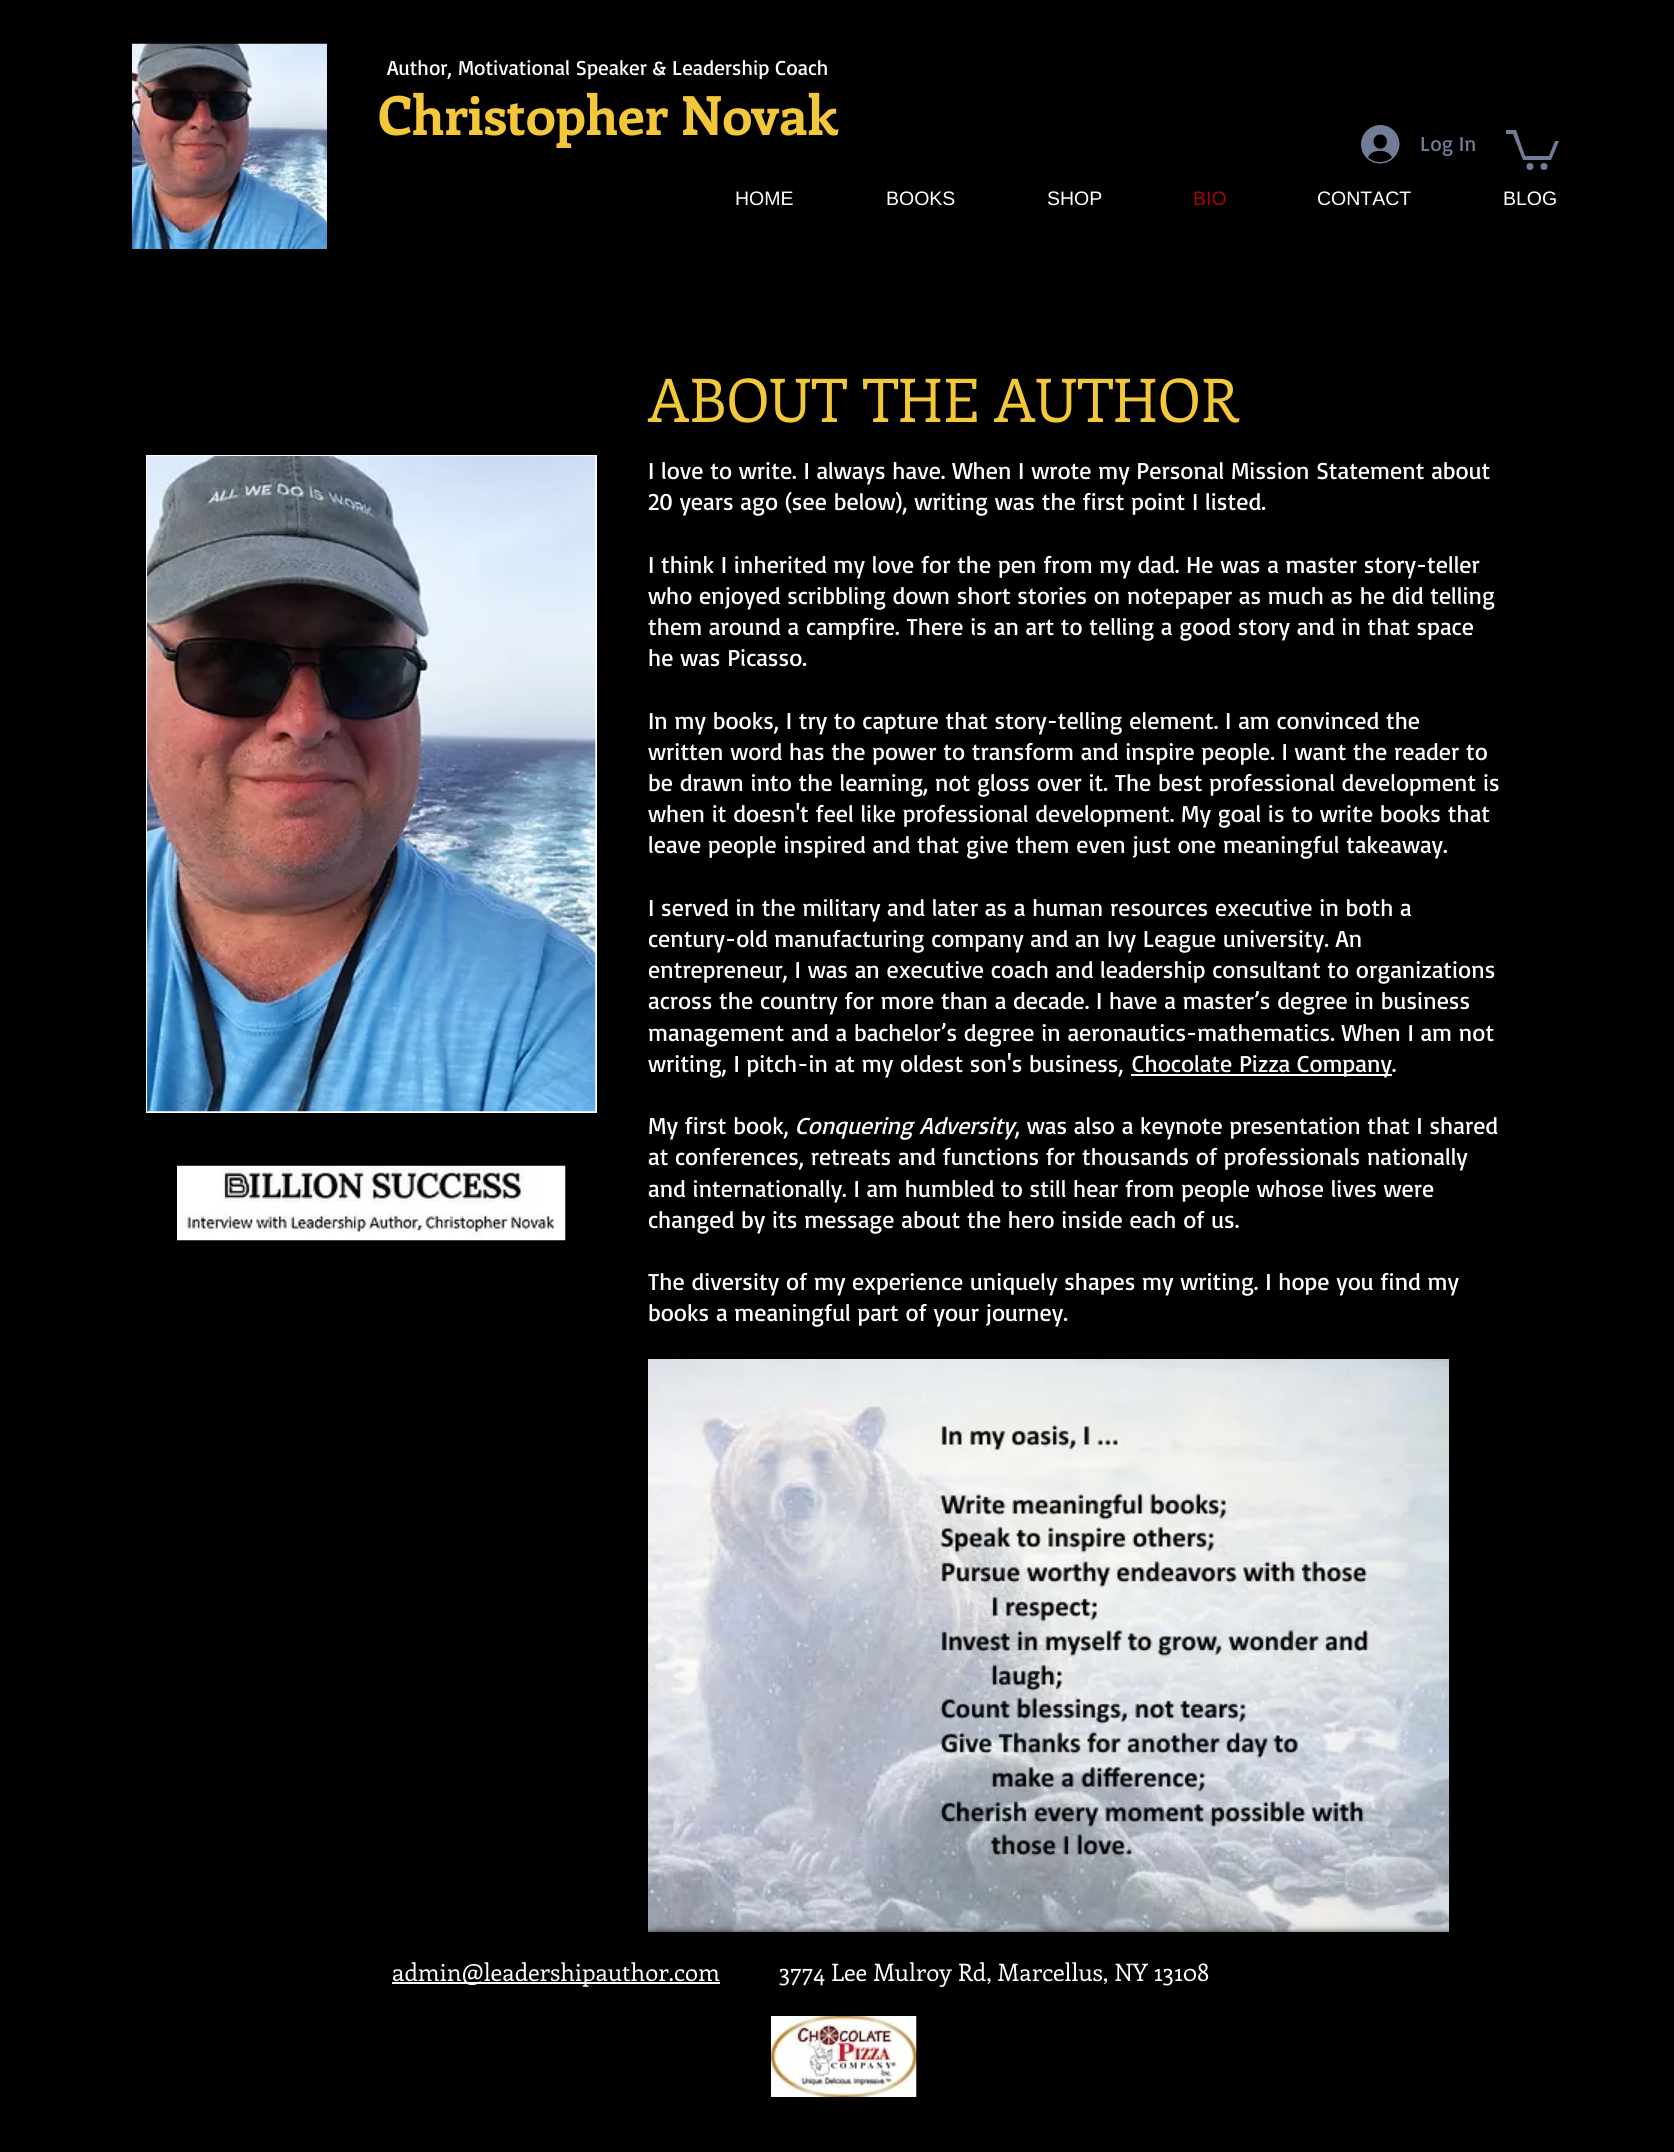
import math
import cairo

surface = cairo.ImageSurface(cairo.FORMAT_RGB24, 1674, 2152)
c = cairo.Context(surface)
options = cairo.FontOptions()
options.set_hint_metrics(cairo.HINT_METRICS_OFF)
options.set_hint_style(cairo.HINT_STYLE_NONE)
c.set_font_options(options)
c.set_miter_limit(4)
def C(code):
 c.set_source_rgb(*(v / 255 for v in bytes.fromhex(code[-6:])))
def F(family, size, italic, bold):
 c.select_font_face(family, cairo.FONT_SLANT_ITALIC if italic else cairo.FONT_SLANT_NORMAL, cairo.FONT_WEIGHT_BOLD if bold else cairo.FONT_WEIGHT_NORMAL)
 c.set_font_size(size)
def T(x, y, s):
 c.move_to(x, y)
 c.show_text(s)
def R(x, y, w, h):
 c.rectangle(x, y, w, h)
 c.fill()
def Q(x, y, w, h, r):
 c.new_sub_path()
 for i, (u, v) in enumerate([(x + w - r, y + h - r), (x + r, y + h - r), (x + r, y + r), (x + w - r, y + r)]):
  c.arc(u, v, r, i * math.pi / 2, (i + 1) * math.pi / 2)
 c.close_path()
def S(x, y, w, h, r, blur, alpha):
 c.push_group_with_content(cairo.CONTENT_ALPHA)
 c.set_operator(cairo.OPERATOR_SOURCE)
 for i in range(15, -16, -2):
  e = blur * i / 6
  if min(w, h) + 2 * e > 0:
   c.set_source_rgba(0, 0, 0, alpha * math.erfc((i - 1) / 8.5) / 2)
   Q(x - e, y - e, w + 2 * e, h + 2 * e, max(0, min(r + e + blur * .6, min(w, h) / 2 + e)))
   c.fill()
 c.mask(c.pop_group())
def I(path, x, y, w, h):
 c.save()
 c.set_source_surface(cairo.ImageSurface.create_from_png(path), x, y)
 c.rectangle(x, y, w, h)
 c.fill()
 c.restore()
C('000000')
c.paint()
I('1.png',132,43,195,206)
F('Basic',21,0,0)
C('ffffff')
T(387,75,'Author, Motivational Speaker & Leadership Coach')
F('Enriqueta',54,0,1)
C('f2c73a')
T(378,135,'Christopher Novak')
C('717d97')
c.new_path()
c.move_to(1559,141)
c.line_to(1551,160)
c.line_to(1523,160)
c.line_to(1513,134)
c.line_to(1506,134)
c.line_to(1506,130)
c.line_to(1516,130)
c.line_to(1525,156)
c.line_to(1549,156)
c.line_to(1555,141)
c.fill()
c.arc(1544,166.5,3.5,0,2 * math.pi)
c.fill()
c.arc(1530,166.5,3.5,0,2 * math.pi)
c.fill()
F('Liberation Sans',19.5,0,0)
C('ffffff')
T(735,205,'HOME')
T(886,205,'BOOKS')
T(1047,205,'SHOP')
C('a40606')
T(1193,205,'BIO')
C('ffffff')
T(1317,205,'CONTACT')
T(1503,205,'BLOG')
I('2.png',1361,125,39,39)
F('Basic',21,0,0)
C('717d97')
T(1420,151,'Log In')
F('Enriqueta',60,0,0)
C('f2c73a')
T(648,422,'ABOUT THE AUTHOR')
C('ffffff')
R(146,455,451,658)
I('3.png',147,456,449,656)
F('Basic',24,0,0)
T(648,479,'I love to write. I always have. When I wrote my Personal Mission Statement about')
T(648,510,'20 years ago (see below), writing was the first point I listed.')
T(648,573,'I think I inherited my love for the pen from my dad. He was a master story-teller')
T(648,604,'who enjoyed scribbling down short stories on notepaper as much as he did telling')
T(648,635,'them around a campfire. There is an art to telling a good story and in that space')
T(648,666,'he was Picasso.')
T(648,729,'In my books, I try to capture that story-telling element. I am convinced the')
T(648,760,'written word has the power to transform and inspire people. I want the reader to')
T(648,791,'be drawn into the learning, not gloss over it. The best professional development is')
T(648,822,'when it doesn\'t feel like professional development. My goal is to write books that')
T(648,853,'leave people inspired and that give them even just one meaningful takeaway.')
T(648,916,'I served in the military and later as a human resources executive in both a')
T(648,947,'century-old manufacturing company and an Ivy League university. An')
T(648,978,'entrepreneur, I was an executive coach and leadership consultant to organizations')
T(648,1009,'across the country for more than a decade. I have a master’s degree in business')
T(648,1041,'management and a bachelor’s degree in aeronautics-mathematics. When I am not')
T(648,1072,'writing, I pitch-in at my oldest son\'s business,')
R(1131,1074,261,2)
T(1132,1072,'Chocolate Pizza Company.')
T(648,1134,'My first book,')
F('Basic',24,1,0)
T(795,1134,'Conquering Adversity')
F('Basic',24,0,0)
T(1015,1134,', was also a keynote presentation that I shared')
T(648,1165,'at conferences, retreats and functions for thousands of professionals nationally')
T(648,1197,'and internationally. I am humbled to still hear from people whose lives were')
T(648,1228,'changed by its message about the hero inside each of us.')
T(648,1290,'The diversity of my experience uniquely shapes my writing. I hope you find my')
T(648,1321,'books a meaningful part of your journey.')
I('4.png',177,1165,389,76)
I('5.png',648,1359,801,573)
c.save()
c.set_fill_rule(cairo.FILL_RULE_EVEN_ODD)
c.new_path()
c.move_to(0,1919)
c.line_to(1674,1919)
c.line_to(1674,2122)
c.line_to(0,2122)
c.close_path()
c.move_to(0,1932)
c.line_to(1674,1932)
c.line_to(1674,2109)
c.line_to(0,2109)
c.close_path()
c.clip()
C('000000')
S(0,1932,1674,177,0,4,.7)
c.restore()
R(392,1982,328,2)
F('Enriqueta',24,0,0)
T(392,1981,'admin@leadershipauthor.com')
T(779,1981,'3774 Lee Mulroy Rd, Marcellus, NY 13108')
I('6.png',771,2016,146,81)
surface.write_to_png('o.png')
